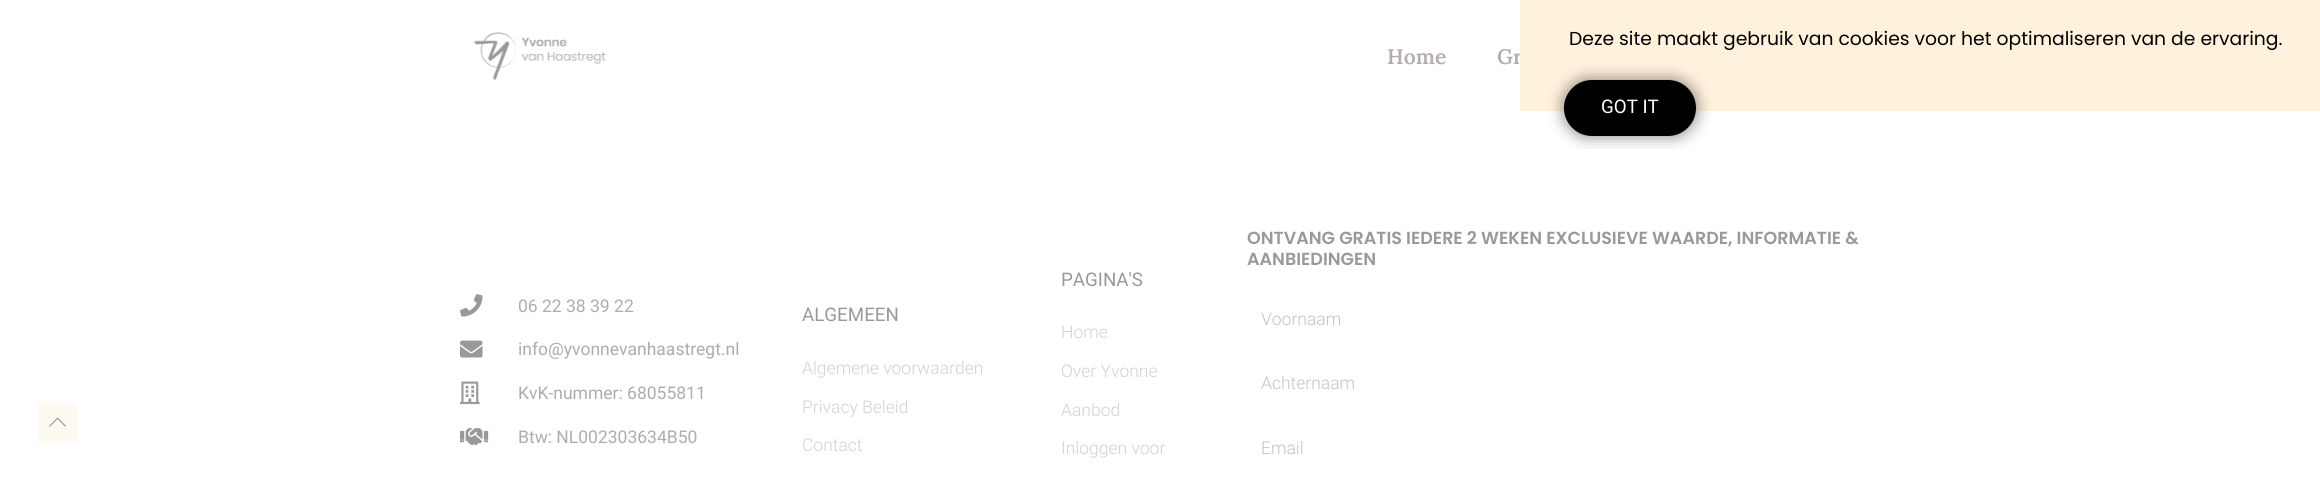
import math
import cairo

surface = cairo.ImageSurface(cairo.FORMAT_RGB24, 2320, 480)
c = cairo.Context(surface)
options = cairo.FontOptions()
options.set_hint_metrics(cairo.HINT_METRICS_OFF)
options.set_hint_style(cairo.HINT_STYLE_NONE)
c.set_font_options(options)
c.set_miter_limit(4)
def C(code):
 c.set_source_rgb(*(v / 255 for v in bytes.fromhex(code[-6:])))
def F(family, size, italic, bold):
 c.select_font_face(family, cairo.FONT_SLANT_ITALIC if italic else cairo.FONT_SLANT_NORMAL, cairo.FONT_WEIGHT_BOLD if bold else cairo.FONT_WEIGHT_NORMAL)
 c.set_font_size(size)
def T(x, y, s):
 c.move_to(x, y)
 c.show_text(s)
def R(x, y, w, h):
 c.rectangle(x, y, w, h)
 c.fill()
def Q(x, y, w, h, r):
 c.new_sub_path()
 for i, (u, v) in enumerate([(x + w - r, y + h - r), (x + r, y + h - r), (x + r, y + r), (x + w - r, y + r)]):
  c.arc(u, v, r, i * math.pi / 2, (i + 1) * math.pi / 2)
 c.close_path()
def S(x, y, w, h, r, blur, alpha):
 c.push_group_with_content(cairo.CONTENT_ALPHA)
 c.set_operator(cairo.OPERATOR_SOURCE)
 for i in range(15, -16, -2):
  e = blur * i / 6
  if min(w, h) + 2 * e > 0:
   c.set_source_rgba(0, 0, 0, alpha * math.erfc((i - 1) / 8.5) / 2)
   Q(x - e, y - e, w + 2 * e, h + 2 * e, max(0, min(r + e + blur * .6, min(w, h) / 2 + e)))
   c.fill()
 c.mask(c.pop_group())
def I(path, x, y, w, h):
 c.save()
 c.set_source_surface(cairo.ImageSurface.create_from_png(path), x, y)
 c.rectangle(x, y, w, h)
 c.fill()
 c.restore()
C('fbfbfb')
c.paint()
C('ffffff')
R(0,109,2320,371)
C('fffaf1')
c.new_path()
c.move_to(74.5,442.5)
c.line_to(40,442.5)
c.curve_to(38.5,442.5,37.5,441.5,37.5,440)
c.line_to(37.5,405.5)
c.curve_to(37.5,404,38.5,403,40,403)
c.line_to(74.5,403)
c.curve_to(76,403,77,404,77,405.5)
c.line_to(77,440)
c.curve_to(77,441.5,76,442.5,74.5,442.5)
c.close_path()
c.fill()
I('1.png',49,417,17,10)
C('ffffff')
R(410,0,1110,34)
c.set_source_rgba(1,1,1,0.88)
R(0,0,2320,109)
I('2.png',474,32,132,48)
F('Lora SemiBold',21,0,0)
C('b3aca8')
T(1387,64,'Home')
T(1497,64,'Gr')
I('3.png',460,294,23,23)
F('Roboto',17.5,0,0)
C('adadad')
T(518,312,'06 22 38 39 22')
I('4.png',460,340,23,18)
T(518,355,'info@yvonnevanhaastregt.nl')
I('5.png',460,381,20,24)
T(518,399,'KvK-nummer: 68055811')
I('6.png',460,428,29,17)
T(518,443,'Btw: NL002303634B50')
F('Roboto',18.75,0,0)
C('999999')
T(802,321,'ALGEMEEN')
F('Roboto Light',17.5,0,0)
C('d1d1d1')
T(802,374,'Algemene voorwaarden')
T(802,413,'Privacy Beleid')
T(802,451,'Contact')
F('Roboto',18.75,0,0)
C('999999')
T(1061,286,'PAGINA\'S')
F('Roboto Light',17.5,0,0)
C('d1d1d1')
T(1061,338,'Home')
T(1061,377,'Over Yvonne')
T(1061,416,'Aanbod')
T(1061,454,'Inloggen voor')
F('Poppins SemiBold',17.5,0,0)
C('999999')
T(1247,244,'ONTVANG GRATIS IEDERE 2 WEKEN EXCLUSIEVE WAARDE, INFORMATIE &')
T(1247,265,'AANBIEDINGEN')
F('Roboto Light',17.5,0,0)
C('c2c2c2')
T(1261,325,'Voornaam')
T(1261,389,'Achternaam')
T(1261,454,'Email')
C('fff2dd')
R(1520,0,800,111)
F('Poppins',18.75,0,0)
C('000000')
T(1569,45,'Deze site maakt gebruik van cookies voor het optimaliseren van de ervaring.')
c.save()
c.rectangle(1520,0,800,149)
c.clip()
C('000000')
S(1564,80,132,56,28,8,.5)
c.restore()
Q(1564,80,132,56,28)
c.fill()
F('Roboto',18.75,0,0)
C('ffffff')
T(1601,113,'GOT IT')
surface.write_to_png('o.png')
